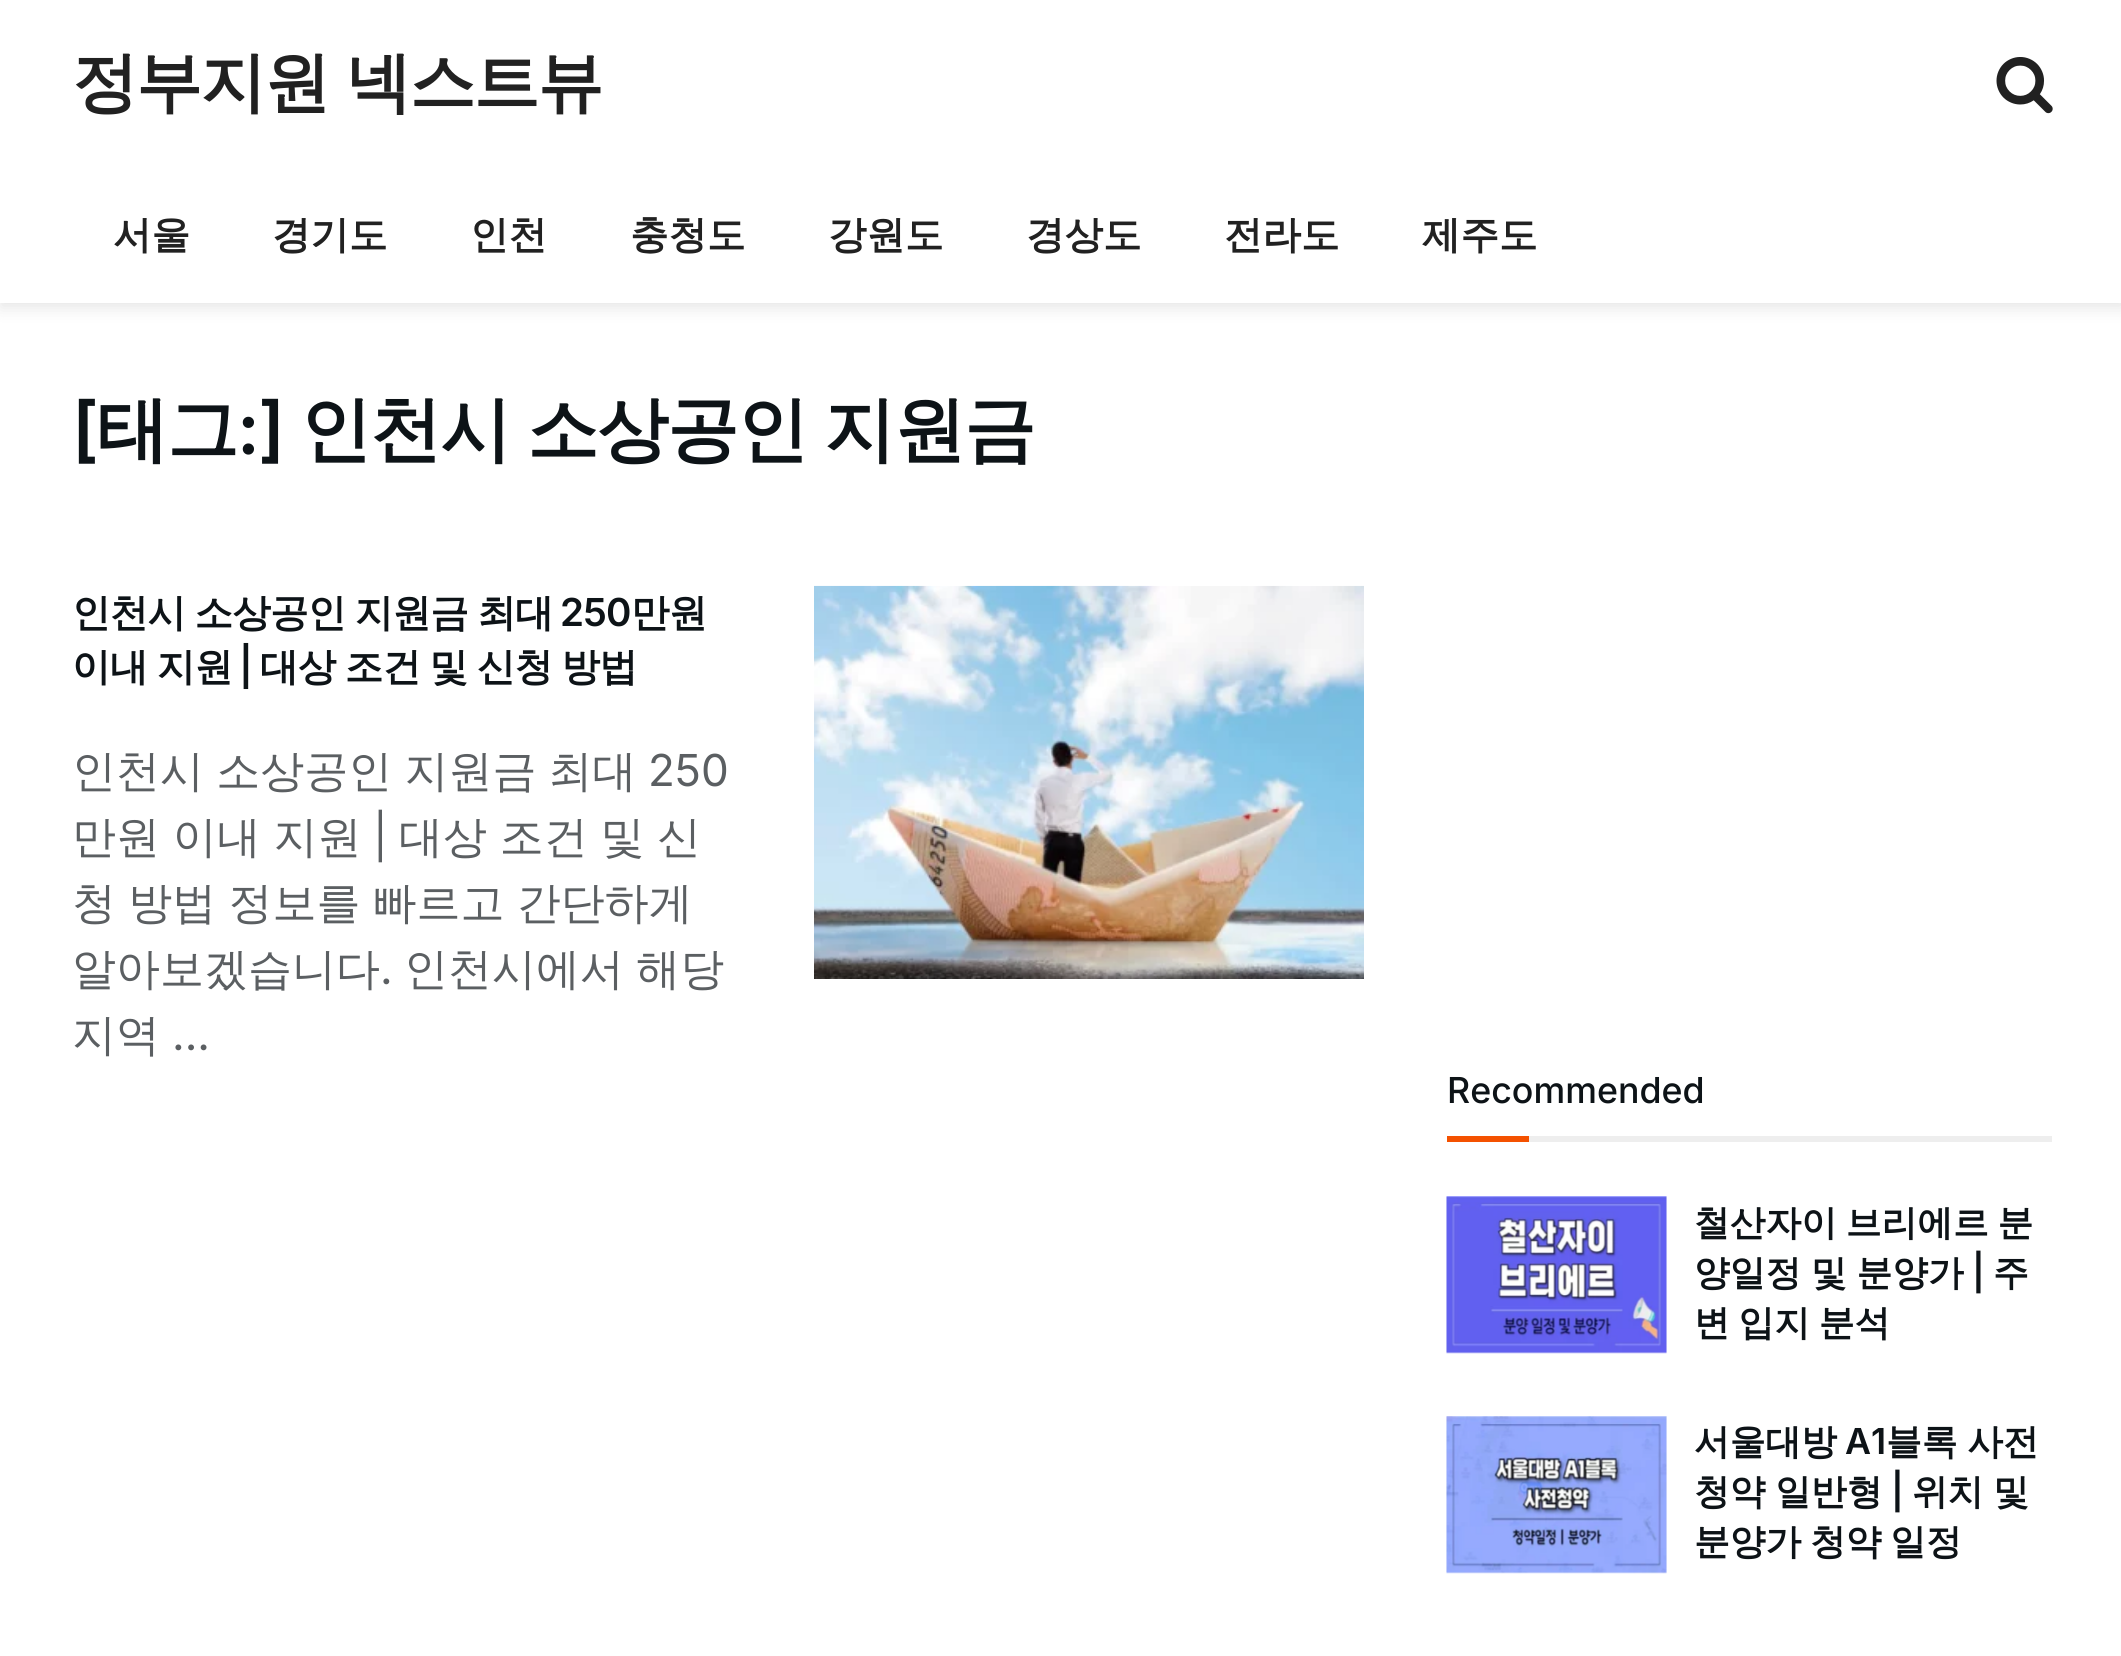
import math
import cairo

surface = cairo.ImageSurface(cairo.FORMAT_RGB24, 2121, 1656)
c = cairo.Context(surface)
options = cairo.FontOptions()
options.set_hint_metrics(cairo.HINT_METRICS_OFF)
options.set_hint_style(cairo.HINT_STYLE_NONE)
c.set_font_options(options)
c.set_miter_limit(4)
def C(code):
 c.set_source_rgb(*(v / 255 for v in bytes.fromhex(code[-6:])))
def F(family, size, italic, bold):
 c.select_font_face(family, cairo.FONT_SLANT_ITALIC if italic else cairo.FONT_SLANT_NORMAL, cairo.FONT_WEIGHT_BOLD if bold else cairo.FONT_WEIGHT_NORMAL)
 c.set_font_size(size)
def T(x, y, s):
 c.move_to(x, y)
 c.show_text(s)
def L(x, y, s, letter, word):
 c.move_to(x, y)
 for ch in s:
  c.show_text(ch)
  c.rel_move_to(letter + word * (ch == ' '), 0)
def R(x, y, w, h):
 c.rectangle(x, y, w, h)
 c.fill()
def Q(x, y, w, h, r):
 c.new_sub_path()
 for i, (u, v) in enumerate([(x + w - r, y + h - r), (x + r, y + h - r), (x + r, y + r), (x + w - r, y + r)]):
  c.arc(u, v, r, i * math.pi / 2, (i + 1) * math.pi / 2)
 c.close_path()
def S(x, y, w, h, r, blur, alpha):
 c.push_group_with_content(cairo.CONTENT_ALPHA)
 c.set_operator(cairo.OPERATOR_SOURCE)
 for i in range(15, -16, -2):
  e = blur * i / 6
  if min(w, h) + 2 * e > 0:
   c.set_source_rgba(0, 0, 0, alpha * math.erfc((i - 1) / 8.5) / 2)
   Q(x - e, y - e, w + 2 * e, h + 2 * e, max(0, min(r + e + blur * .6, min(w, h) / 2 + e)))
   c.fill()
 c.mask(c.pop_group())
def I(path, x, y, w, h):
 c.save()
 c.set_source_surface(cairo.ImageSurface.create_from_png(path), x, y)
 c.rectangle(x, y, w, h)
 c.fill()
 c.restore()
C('ffffff')
c.paint()
C('000000')
S(0,6,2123,302,0,8,.1)
C('ffffff')
R(0,0,2121,303)
F('WenQuanYi Zen Hei',66,0,1)
C('212121')
L(72,105,'정부지원 넥스트뷰',-1.9,-1)
I('1.png',1996,57,57,57)
F('WenQuanYi Zen Hei',38.5,0,1)
T(113,248,'서울')
T(272,248,'경기도')
T(470,248,'인천')
T(630,248,'충청도')
T(828,248,'강원도')
T(1026,248,'경상도')
T(1224,248,'전라도')
T(1422,248,'제주도')
F('Inter SemiBold',71.5,0,0)
C('0d1317')
L(72,454,'[',-1.5,0)
F('WenQuanYi Zen Hei',71.5,0,1)
L(97,454,'태그',-1.5,0)
F('Inter SemiBold',71.5,0,0)
L(237,454,':]',-1.5,0)
F('WenQuanYi Zen Hei',71.5,0,1)
L(300,454,'인천시 소상공인 지원금',-1.5,-3)
F('WenQuanYi Zen Hei',38.5,0,1)
L(72,626,'인천시 소상공인 지원금 최대',-.75,-1.5)
F('Inter SemiBold',38.5,0,0)
L(560,626,'250',-.75,0)
F('WenQuanYi Zen Hei',38.5,0,1)
L(631,626,'만원',-.75,0)
L(72,680,'이내 지원',-.75,-1.5)
F('Inter SemiBold',38.5,0,0)
L(239,680,'|',-.75,0)
F('WenQuanYi Zen Hei',38.5,0,1)
L(260,680,'대상 조건 및 신청 방법',-.75,-1.5)
F('WenQuanYi Zen Hei Medium',44,0,0)
C('5b5f62')
L(72,786,'인천시 소상공인 지원금 최대',0,-1)
F('Inter',44,0,0)
T(648,786,'250')
F('WenQuanYi Zen Hei Medium',44,0,0)
L(72,852,'만원 이내 지원',0,-.5)
F('Inter',44,0,0)
T(373,852,'|')
F('WenQuanYi Zen Hei Medium',44,0,0)
L(399,852,'대상 조건 및 신',0,-.5)
L(72,918,'청 방법 정보를 빠르고 간단하게',0,-1)
T(72,984,'알아보겠습니다')
F('Inter',44,0,0)
T(380,984,'.')
F('WenQuanYi Zen Hei Medium',44,0,0)
L(404,984,'인천시에서 해당',0,-1)
T(72,1050,'지역')
F('Inter',44,0,0)
T(172,1050,'...')
I('2.png',814,585,550,394)
C('eeeeee')
R(1529,1136,523,6)
F('Inter Medium',35.75,0,0)
C('0d1317')
T(1447,1103,'Recommended')
C('f45100')
R(1447,1136,82,6)
C('f7f7f7')
R(1447,1196,220,157)
C('fbfbfb')
R(1446,1197,1,155)
I('3.png',1446,1196,221,158)
F('WenQuanYi Zen Hei',35.75,0,1)
C('0d1317')
L(1694,1235,'철산자이 브리에르 분',0,-2)
L(1694,1285,'양일정 및 분양가',0,-1)
F('Inter SemiBold',35.75,0,0)
T(1972,1285,'|')
F('WenQuanYi Zen Hei',35.75,0,1)
T(1993,1285,'주')
L(1694,1335,'변 입지 분석',0,-2)
C('f7f7f7')
R(1447,1416,220,157)
C('fbfbfb')
R(1446,1417,1,155)
I('4.png',1446,1416,221,158)
C('0d1317')
T(1694,1454,'서울대방')
F('Inter SemiBold',35.75,0,0)
T(1845,1454,'A1')
F('WenQuanYi Zen Hei',35.75,0,1)
L(1886,1454,'블록 사전',0,-1)
L(1694,1504,'청약 일반형',0,-1)
F('Inter SemiBold',35.75,0,0)
T(1891,1504,'|')
F('WenQuanYi Zen Hei',35.75,0,1)
L(1912,1504,'위치 및',0,-1)
L(1694,1554,'분양가 청약 일정',0,-2)
surface.write_to_png('o.png')
